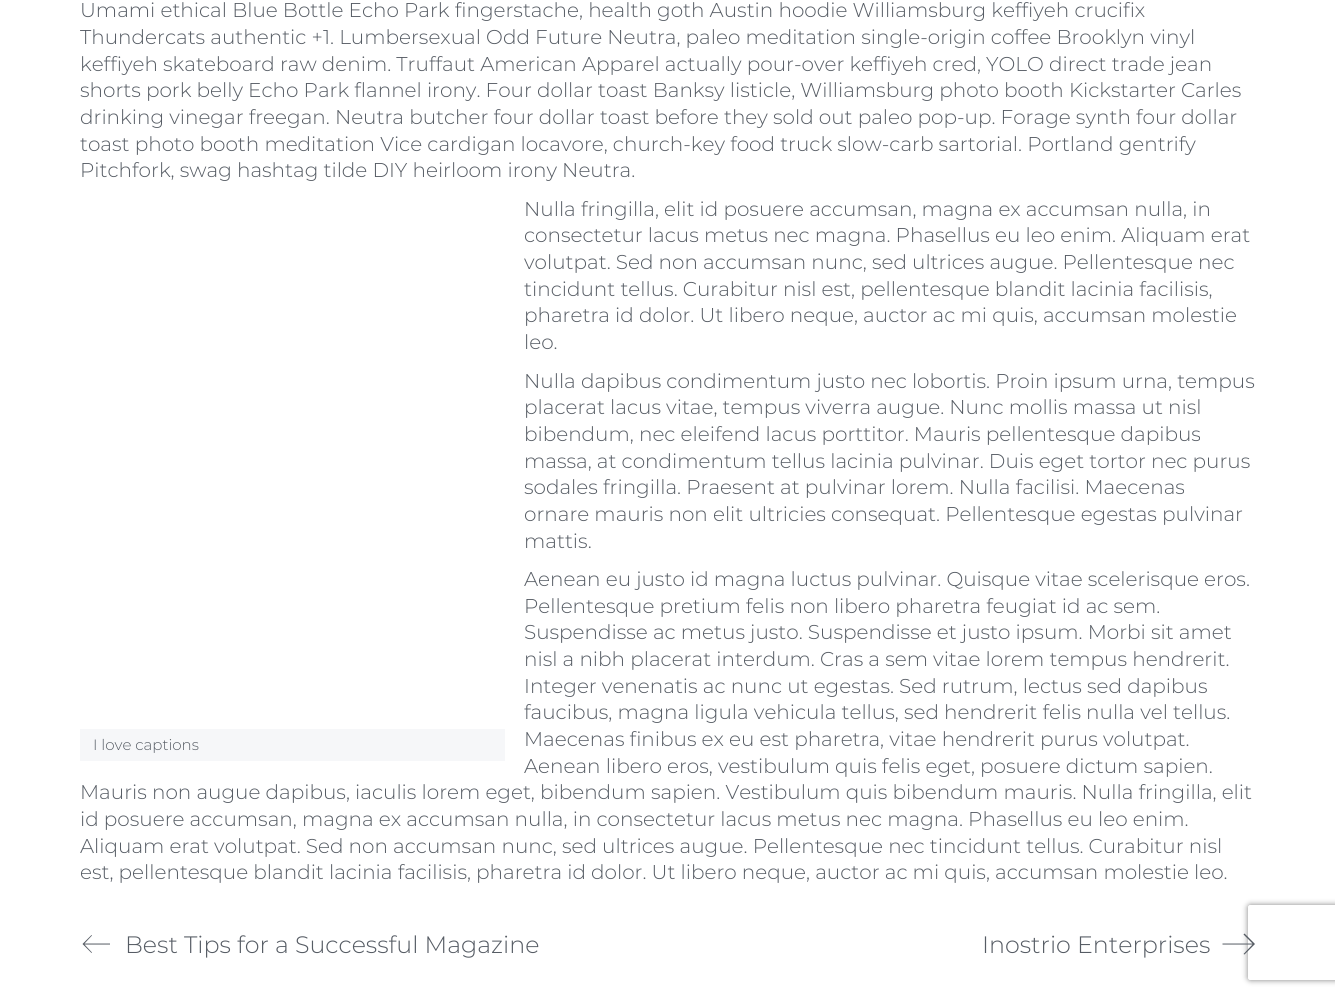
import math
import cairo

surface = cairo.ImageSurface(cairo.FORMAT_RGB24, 1335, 997)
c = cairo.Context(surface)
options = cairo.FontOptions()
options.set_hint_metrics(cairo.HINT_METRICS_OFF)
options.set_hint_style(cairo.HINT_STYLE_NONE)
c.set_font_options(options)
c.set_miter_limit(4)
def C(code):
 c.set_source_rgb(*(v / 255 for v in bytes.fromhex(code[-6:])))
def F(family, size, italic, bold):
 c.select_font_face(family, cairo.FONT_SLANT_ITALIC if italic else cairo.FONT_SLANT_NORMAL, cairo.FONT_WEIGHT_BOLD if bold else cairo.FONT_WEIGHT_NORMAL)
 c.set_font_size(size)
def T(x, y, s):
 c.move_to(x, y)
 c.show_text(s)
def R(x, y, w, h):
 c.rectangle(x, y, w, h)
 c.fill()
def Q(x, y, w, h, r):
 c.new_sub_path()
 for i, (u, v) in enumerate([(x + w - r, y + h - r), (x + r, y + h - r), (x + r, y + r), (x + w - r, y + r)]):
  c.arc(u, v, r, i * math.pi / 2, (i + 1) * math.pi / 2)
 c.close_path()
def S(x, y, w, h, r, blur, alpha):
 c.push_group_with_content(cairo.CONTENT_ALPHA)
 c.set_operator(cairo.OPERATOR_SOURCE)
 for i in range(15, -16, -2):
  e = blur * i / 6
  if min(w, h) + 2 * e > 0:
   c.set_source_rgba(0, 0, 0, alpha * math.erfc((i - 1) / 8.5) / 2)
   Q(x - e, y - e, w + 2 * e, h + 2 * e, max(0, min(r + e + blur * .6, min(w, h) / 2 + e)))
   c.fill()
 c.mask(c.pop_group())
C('ffffff')
c.paint()
F('Montserrat Light',20,0,0)
C('565c64')
T(80,17,'Umami ethical Blue Bottle Echo Park fingerstache, health goth Austin hoodie Williamsburg keffiyeh crucifix')
T(80,44,'Thundercats authentic +1. Lumbersexual Odd Future Neutra, paleo meditation single-origin coffee Brooklyn vinyl')
T(80,71,'keffiyeh skateboard raw denim. Truffaut American Apparel actually pour-over keffiyeh cred, YOLO direct trade jean')
T(80,97,'shorts pork belly Echo Park flannel irony. Four dollar toast Banksy listicle, Williamsburg photo booth Kickstarter Carles')
T(80,124,'drinking vinegar freegan. Neutra butcher four dollar toast before they sold out paleo pop-up. Forage synth four dollar')
T(80,151,'toast photo booth meditation Vice cardigan locavore, church-key food truck slow-carb sartorial. Portland gentrify')
T(80,177,'Pitchfork, swag hashtag tilde DIY heirloom irony Neutra.')
T(524,216,'Nulla fringilla, elit id posuere accumsan, magna ex accumsan nulla, in')
T(524,242,'consectetur lacus metus nec magna. Phasellus eu leo enim. Aliquam erat')
T(524,269,'volutpat. Sed non accumsan nunc, sed ultrices augue. Pellentesque nec')
T(524,296,'tincidunt tellus. Curabitur nisl est, pellentesque blandit lacinia facilisis,')
T(524,322,'pharetra id dolor. Ut libero neque, auctor ac mi quis, accumsan molestie')
T(524,349,'leo.')
T(524,388,'Nulla dapibus condimentum justo nec lobortis. Proin ipsum urna, tempus')
T(524,414,'placerat lacus vitae, tempus viverra augue. Nunc mollis massa ut nisl')
T(524,441,'bibendum, nec eleifend lacus porttitor. Mauris pellentesque dapibus')
T(524,468,'massa, at condimentum tellus lacinia pulvinar. Duis eget tortor nec purus')
T(524,494,'sodales fringilla. Praesent at pulvinar lorem. Nulla facilisi. Maecenas')
T(524,521,'ornare mauris non elit ultricies consequat. Pellentesque egestas pulvinar')
T(524,548,'mattis.')
T(524,586,'Aenean eu justo id magna luctus pulvinar. Quisque vitae scelerisque eros.')
T(524,613,'Pellentesque pretium felis non libero pharetra feugiat id ac sem.')
T(524,639,'Suspendisse ac metus justo. Suspendisse et justo ipsum. Morbi sit amet')
T(524,666,'nisl a nibh placerat interdum. Cras a sem vitae lorem tempus hendrerit.')
T(524,693,'Integer venenatis ac nunc ut egestas. Sed rutrum, lectus sed dapibus')
T(524,719,'faucibus, magna ligula vehicula tellus, sed hendrerit felis nulla vel tellus.')
T(524,746,'Maecenas finibus ex eu est pharetra, vitae hendrerit purus volutpat.')
T(524,773,'Aenean libero eros, vestibulum quis felis eget, posuere dictum sapien.')
T(80,799,'Mauris non augue dapibus, iaculis lorem eget, bibendum sapien. Vestibulum quis bibendum mauris. Nulla fringilla, elit')
T(80,826,'id posuere accumsan, magna ex accumsan nulla, in consectetur lacus metus nec magna. Phasellus eu leo enim.')
T(80,853,'Aliquam erat volutpat. Sed non accumsan nunc, sed ultrices augue. Pellentesque nec tincidunt tellus. Curabitur nisl')
T(80,879,'est, pellentesque blandit lacinia facilisis, pharetra id dolor. Ut libero neque, auctor ac mi quis, accumsan molestie leo.')
C('f6f7f9')
R(80,729,425,32)
F('Montserrat Light',15,0,0)
C('565c64')
T(93,750,'I love captions')
c.new_path()
c.move_to(110,943.5)
c.line_to(84.5,943.5)
c.line_to(92,935.5)
c.line_to(91.5,935)
c.line_to(82.5,944)
c.line_to(91.5,953)
c.line_to(92,952.5)
c.line_to(84.5,944.5)
c.line_to(110,944.5)
c.close_path()
c.fill()
F('Montserrat Light',23.75,0,0)
T(125,953,'Best Tips for a Successful Magazine')
T(982,953,'Inostrio Enterprises')
c.save()
c.set_fill_rule(cairo.FILL_RULE_EVEN_ODD)
c.new_path()
c.move_to(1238,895)
c.line_to(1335,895)
c.line_to(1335,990)
c.line_to(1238,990)
c.close_path()
c.move_to(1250.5,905)
c.line_to(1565.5,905)
c.curve_to(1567,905,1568,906,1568,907.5)
c.line_to(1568,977.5)
c.curve_to(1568,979,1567,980,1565.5,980)
c.line_to(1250.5,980)
c.curve_to(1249,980,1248,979,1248,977.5)
c.line_to(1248,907.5)
c.curve_to(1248,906,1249,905,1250.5,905)
c.close_path()
c.clip()
C('808080')
S(1248,905,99,75,2.5,3,1)
c.restore()
c.new_path()
c.move_to(1244.5,933.5)
c.line_to(1243.5,934.5)
c.line_to(1252.5,943.5)
c.line_to(1222.5,943.5)
c.line_to(1222.5,944.5)
c.line_to(1252.5,944.5)
c.line_to(1243.5,954)
c.line_to(1244.5,954.5)
c.line_to(1255,944)
c.close_path()
c.fill()
surface.write_to_png('o.png')
